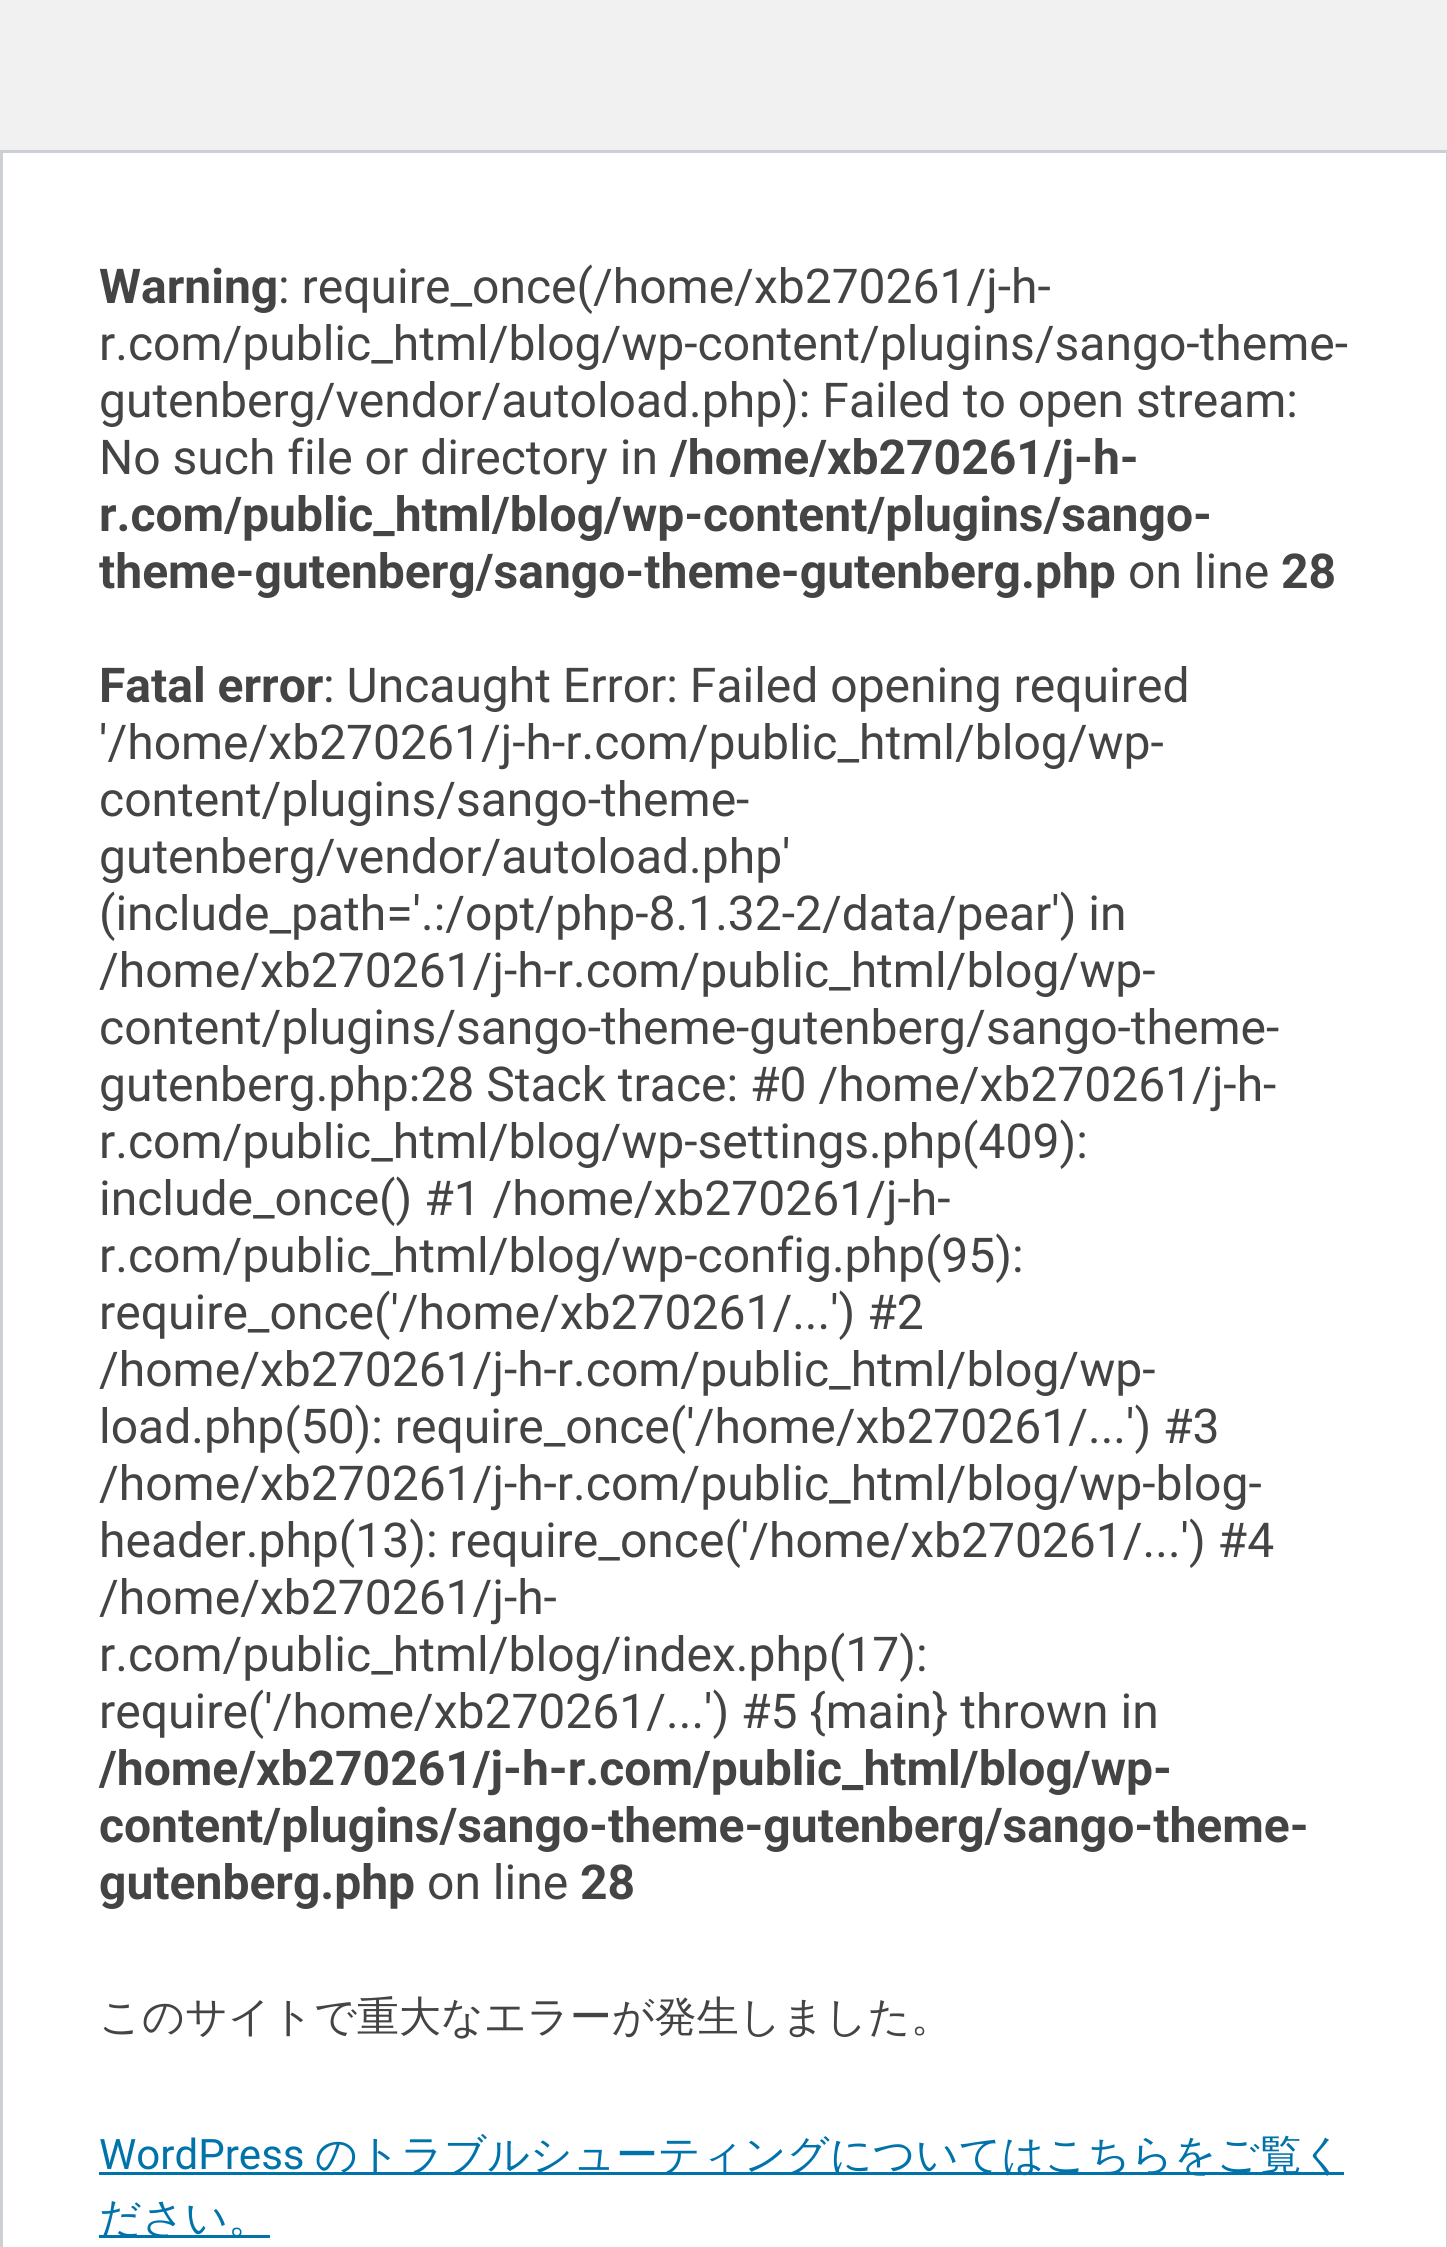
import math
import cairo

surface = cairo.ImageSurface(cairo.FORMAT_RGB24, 1447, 2247)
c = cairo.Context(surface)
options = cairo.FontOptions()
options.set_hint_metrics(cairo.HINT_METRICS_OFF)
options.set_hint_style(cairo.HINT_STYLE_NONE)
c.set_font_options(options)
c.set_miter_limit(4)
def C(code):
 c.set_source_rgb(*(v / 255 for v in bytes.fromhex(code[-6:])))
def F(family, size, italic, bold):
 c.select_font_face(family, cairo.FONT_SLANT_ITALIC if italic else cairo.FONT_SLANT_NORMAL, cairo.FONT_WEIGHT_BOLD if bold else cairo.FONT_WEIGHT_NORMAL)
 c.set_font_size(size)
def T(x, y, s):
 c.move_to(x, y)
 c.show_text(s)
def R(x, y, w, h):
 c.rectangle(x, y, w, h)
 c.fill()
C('f1f1f1')
c.paint()
C('ffffff')
c.rectangle(1.5,151.5,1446,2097)
c.fill_preserve()
C('ccd0d4')
c.set_line_width(3)
c.stroke()
F('Roboto',48,0,1)
C('444444')
T(99,303,'Warning')
F('Roboto',48,0,0)
T(278,303,': require_once(/home/xb270261/j-h-')
T(99,360,'r.com/public_html/blog/wp-content/plugins/sango-theme-')
T(99,417,'gutenberg/vendor/autoload.php): Failed to open stream:')
T(99,474,'No such file or directory in')
F('Roboto',48,0,1)
T(670,474,'/home/xb270261/j-h-')
T(99,531,'r.com/public_html/blog/wp-content/plugins/sango-')
T(99,588,'theme-gutenberg/sango-theme-gutenberg.php')
F('Roboto',48,0,0)
T(1128,588,'on line')
F('Roboto',48,0,1)
T(1281,588,'28')
T(99,702,'Fatal error')
F('Roboto',48,0,0)
T(323,702,': Uncaught Error: Failed opening required')
T(99,759,'\'/home/xb270261/j-h-r.com/public_html/blog/wp-')
T(99,816,'content/plugins/sango-theme-')
T(99,873,'gutenberg/vendor/autoload.php\'')
T(99,930,'(include_path=\'.:/opt/php-8.1.32-2/data/pear\') in')
T(99,987,'/home/xb270261/j-h-r.com/public_html/blog/wp-')
T(99,1044,'content/plugins/sango-theme-gutenberg/sango-theme-')
T(99,1101,'gutenberg.php:28 Stack trace: #0 /home/xb270261/j-h-')
T(99,1158,'r.com/public_html/blog/wp-settings.php(409):')
T(99,1215,'include_once() #1 /home/xb270261/j-h-')
T(99,1272,'r.com/public_html/blog/wp-config.php(95):')
T(99,1329,'require_once(\'/home/xb270261/...\') #2')
T(99,1386,'/home/xb270261/j-h-r.com/public_html/blog/wp-')
T(99,1443,'load.php(50): require_once(\'/home/xb270261/...\') #3')
T(99,1500,'/home/xb270261/j-h-r.com/public_html/blog/wp-blog-')
T(99,1557,'header.php(13): require_once(\'/home/xb270261/...\') #4')
T(99,1614,'/home/xb270261/j-h-')
T(99,1671,'r.com/public_html/blog/index.php(17):')
T(99,1728,'require(\'/home/xb270261/...\') #5 {main} thrown in')
F('Roboto',48,0,1)
T(99,1785,'/home/xb270261/j-h-r.com/public_html/blog/wp-')
T(99,1842,'content/plugins/sango-theme-gutenberg/sango-theme-')
T(99,1899,'gutenberg.php')
F('Roboto',48,0,0)
T(427,1899,'on line')
F('Roboto',48,0,1)
T(580,1899,'28')
F('WenQuanYi Zen Hei Medium',42,0,0)
T(99,2031,'このサイトで重大なエラーが発生しました。')
F('Roboto',42,0,0)
C('0073aa')
T(99,2169,'WordPress')
R(99,2172,1245,3)
F('WenQuanYi Zen Hei Medium',42,0,0)
T(315,2169,'のトラブルシューティングについてはこちらをご覧く')
R(99,2235,171,3)
T(99,2232,'ださい。')
surface.write_to_png('o.png')
